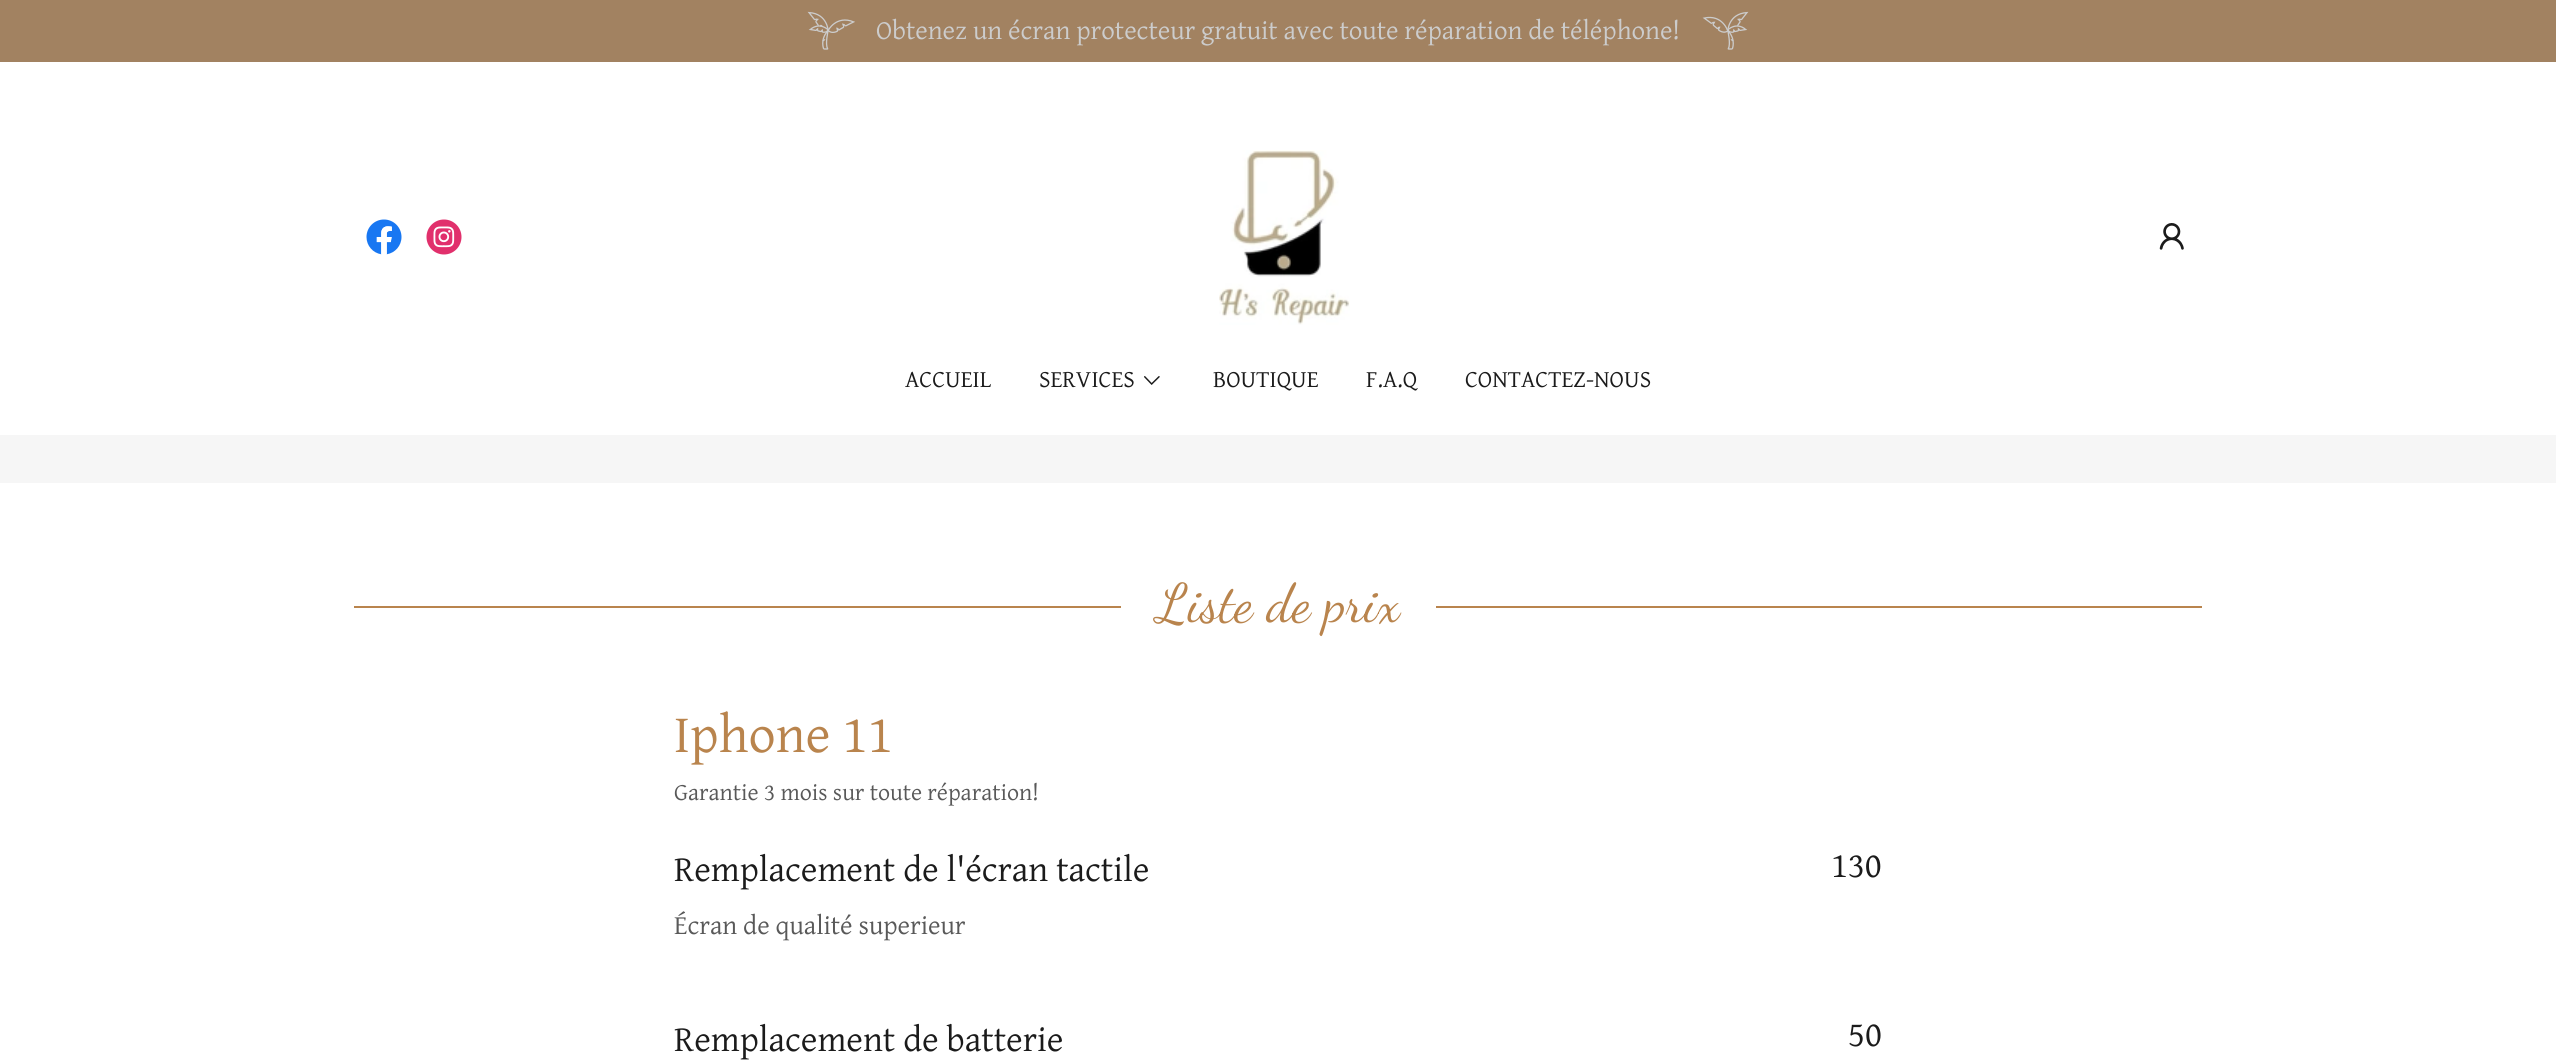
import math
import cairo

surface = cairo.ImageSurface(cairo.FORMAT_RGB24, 2556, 1060)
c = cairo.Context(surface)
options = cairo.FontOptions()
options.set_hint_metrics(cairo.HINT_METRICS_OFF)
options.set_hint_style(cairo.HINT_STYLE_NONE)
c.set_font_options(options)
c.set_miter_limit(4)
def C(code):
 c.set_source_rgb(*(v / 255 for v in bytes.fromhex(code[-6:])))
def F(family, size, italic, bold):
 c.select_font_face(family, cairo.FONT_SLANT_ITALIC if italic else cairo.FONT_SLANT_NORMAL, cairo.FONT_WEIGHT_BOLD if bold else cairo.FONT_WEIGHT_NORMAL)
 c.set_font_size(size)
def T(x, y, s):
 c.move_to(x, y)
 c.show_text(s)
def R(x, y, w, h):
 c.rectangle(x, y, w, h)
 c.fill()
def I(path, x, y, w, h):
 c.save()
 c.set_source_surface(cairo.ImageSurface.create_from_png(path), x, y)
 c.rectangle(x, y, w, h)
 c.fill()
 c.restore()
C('f6f6f6')
c.paint()
C('ffffff')
R(0,62,2556,373)
C('a28261')
R(0,0,2556,62)
I('1.png',807,11,48,39)
F('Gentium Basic',27,0,0)
C('cccccc')
T(876,39,'Obtenez un écran protecteur gratuit avec toute réparation de téléphone!')
I('2.png',1702,11,47,39)
I('3.png',366,219,36,36)
I('4.png',426,219,36,36)
I('5.png',1219,150,131,175)
I('6.png',2159,223,25,27)
F('Gentium Basic',24,0,0)
C('1b1b1b')
T(905,387,'ACCUEIL')
T(1039,387,'SERVICES')
I('7.png',1144,376,16,9)
T(1213,387,'BOUTIQUE')
T(1366,387,'F.A.Q')
T(1465,387,'CONTACTEZ-NOUS')
C('ffffff')
R(0,483,2556,577)
C('b9844d')
R(354,606,767,2)
F('Dancing Script',54,0,0)
T(1157,621,'Liste de prix')
R(1436,606,766,2)
F('Gentium Basic',54,0,0)
T(674,752,'Iphone 11')
F('Gentium Basic',24,0,0)
C('595959')
T(674,800,'Garantie 3 mois sur toute réparation!')
F('Gentium Basic',36,0,0)
C('1b1b1b')
T(674,881,'Remplacement de l\'écran tactile')
T(1831,877,'130')
F('Gentium Basic',27,0,0)
C('595959')
T(674,934,'Écran de qualité superieur')
F('Gentium Basic',36,0,0)
C('1b1b1b')
T(674,1051,'Remplacement de batterie')
T(1848,1046,'50')
surface.write_to_png('o.png')
